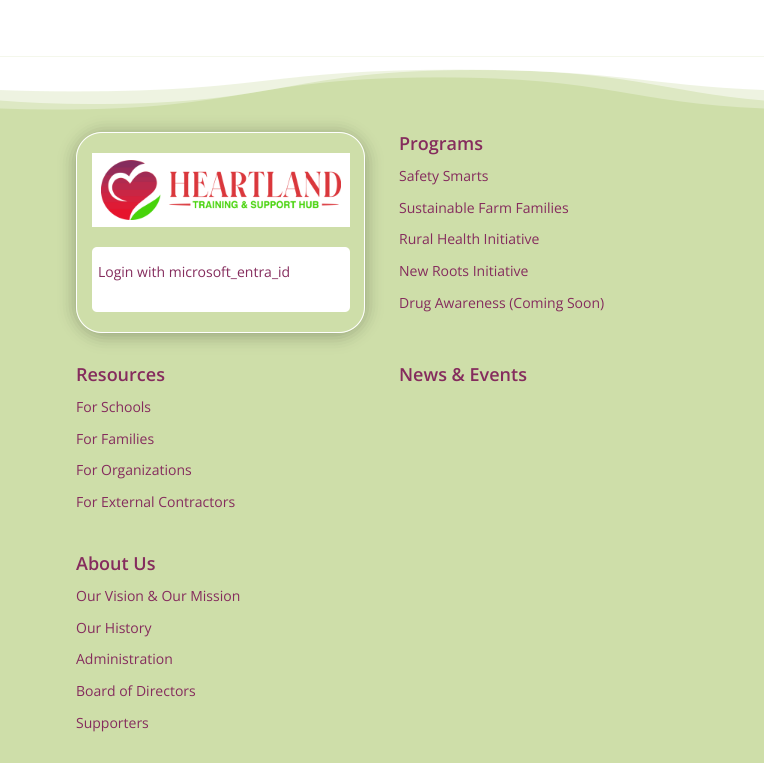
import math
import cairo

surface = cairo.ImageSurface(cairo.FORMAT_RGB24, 764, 763)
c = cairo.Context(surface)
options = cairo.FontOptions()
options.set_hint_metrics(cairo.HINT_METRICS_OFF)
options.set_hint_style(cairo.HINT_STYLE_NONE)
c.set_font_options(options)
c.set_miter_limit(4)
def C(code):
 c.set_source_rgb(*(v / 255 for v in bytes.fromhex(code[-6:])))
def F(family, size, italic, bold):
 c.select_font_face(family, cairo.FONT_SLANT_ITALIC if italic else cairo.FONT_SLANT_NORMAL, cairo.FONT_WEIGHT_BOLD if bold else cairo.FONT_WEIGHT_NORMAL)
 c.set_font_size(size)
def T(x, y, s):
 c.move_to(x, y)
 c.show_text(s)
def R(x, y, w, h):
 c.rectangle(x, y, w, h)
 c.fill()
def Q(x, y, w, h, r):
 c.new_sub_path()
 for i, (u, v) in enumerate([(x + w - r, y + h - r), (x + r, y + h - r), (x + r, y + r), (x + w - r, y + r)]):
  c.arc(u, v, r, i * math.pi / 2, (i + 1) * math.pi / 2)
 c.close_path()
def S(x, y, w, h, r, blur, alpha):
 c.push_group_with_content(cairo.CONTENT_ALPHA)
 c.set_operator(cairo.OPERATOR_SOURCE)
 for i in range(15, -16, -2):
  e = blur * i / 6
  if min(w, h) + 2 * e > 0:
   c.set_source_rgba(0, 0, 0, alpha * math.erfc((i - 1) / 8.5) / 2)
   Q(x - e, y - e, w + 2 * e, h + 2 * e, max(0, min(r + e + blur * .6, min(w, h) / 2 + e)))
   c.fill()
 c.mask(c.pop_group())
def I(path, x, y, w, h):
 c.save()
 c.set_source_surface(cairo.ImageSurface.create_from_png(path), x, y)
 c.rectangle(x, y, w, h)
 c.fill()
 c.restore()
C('ffffff')
c.paint()
C('cedea9')
R(0,56,764,707)
I('1.png',0,56,764,54)
c.save()
c.set_fill_rule(cairo.FILL_RULE_EVEN_ODD)
c.new_path()
c.move_to(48,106)
c.line_to(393,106)
c.line_to(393,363)
c.line_to(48,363)
c.close_path()
c.move_to(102,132)
c.line_to(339,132)
c.curve_to(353.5,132,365,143.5,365,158)
c.line_to(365,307)
c.curve_to(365,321.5,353.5,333,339,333)
c.line_to(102,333)
c.curve_to(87.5,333,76,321.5,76,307)
c.line_to(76,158)
c.curve_to(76,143.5,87.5,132,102,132)
c.close_path()
c.clip()
C('000000')
S(76,134,289,201,26,9,.3)
c.restore()
Q(76.5,132.5,288,200,25.5)
C('ffffff')
c.set_line_width(1)
c.stroke()
R(92,153,258,74)
I('2.png',101,160,240,60)
Q(92,247,258,65,5)
c.fill()
F('Open Sans',14,0,0)
C('852c5d')
T(98,277,'Login with microsoft_entra_id')
F('Open Sans SemiBold',18,0,0)
T(399,150,'Programs')
F('Open Sans',14,0,0)
T(399,181,'Safety Smarts')
T(399,213,'Sustainable Farm Families')
T(399,244,'Rural Health Initiative')
T(399,276,'New Roots Initiative')
T(399,308,'Drug Awareness (Coming Soon)')
F('Open Sans SemiBold',18,0,0)
T(76,381,'Resources')
F('Open Sans',14,0,0)
T(76,412,'For Schools')
T(76,444,'For Families')
T(76,475,'For Organizations')
T(76,507,'For External Contractors')
F('Open Sans SemiBold',18,0,0)
T(399,381,'News & Events')
T(76,570,'About Us')
F('Open Sans',14,0,0)
T(76,601,'Our Vision & Our Mission')
T(76,633,'Our History')
T(76,664,'Administration')
T(76,696,'Board of Directors')
T(76,728,'Supporters')
surface.write_to_png('o.png')
